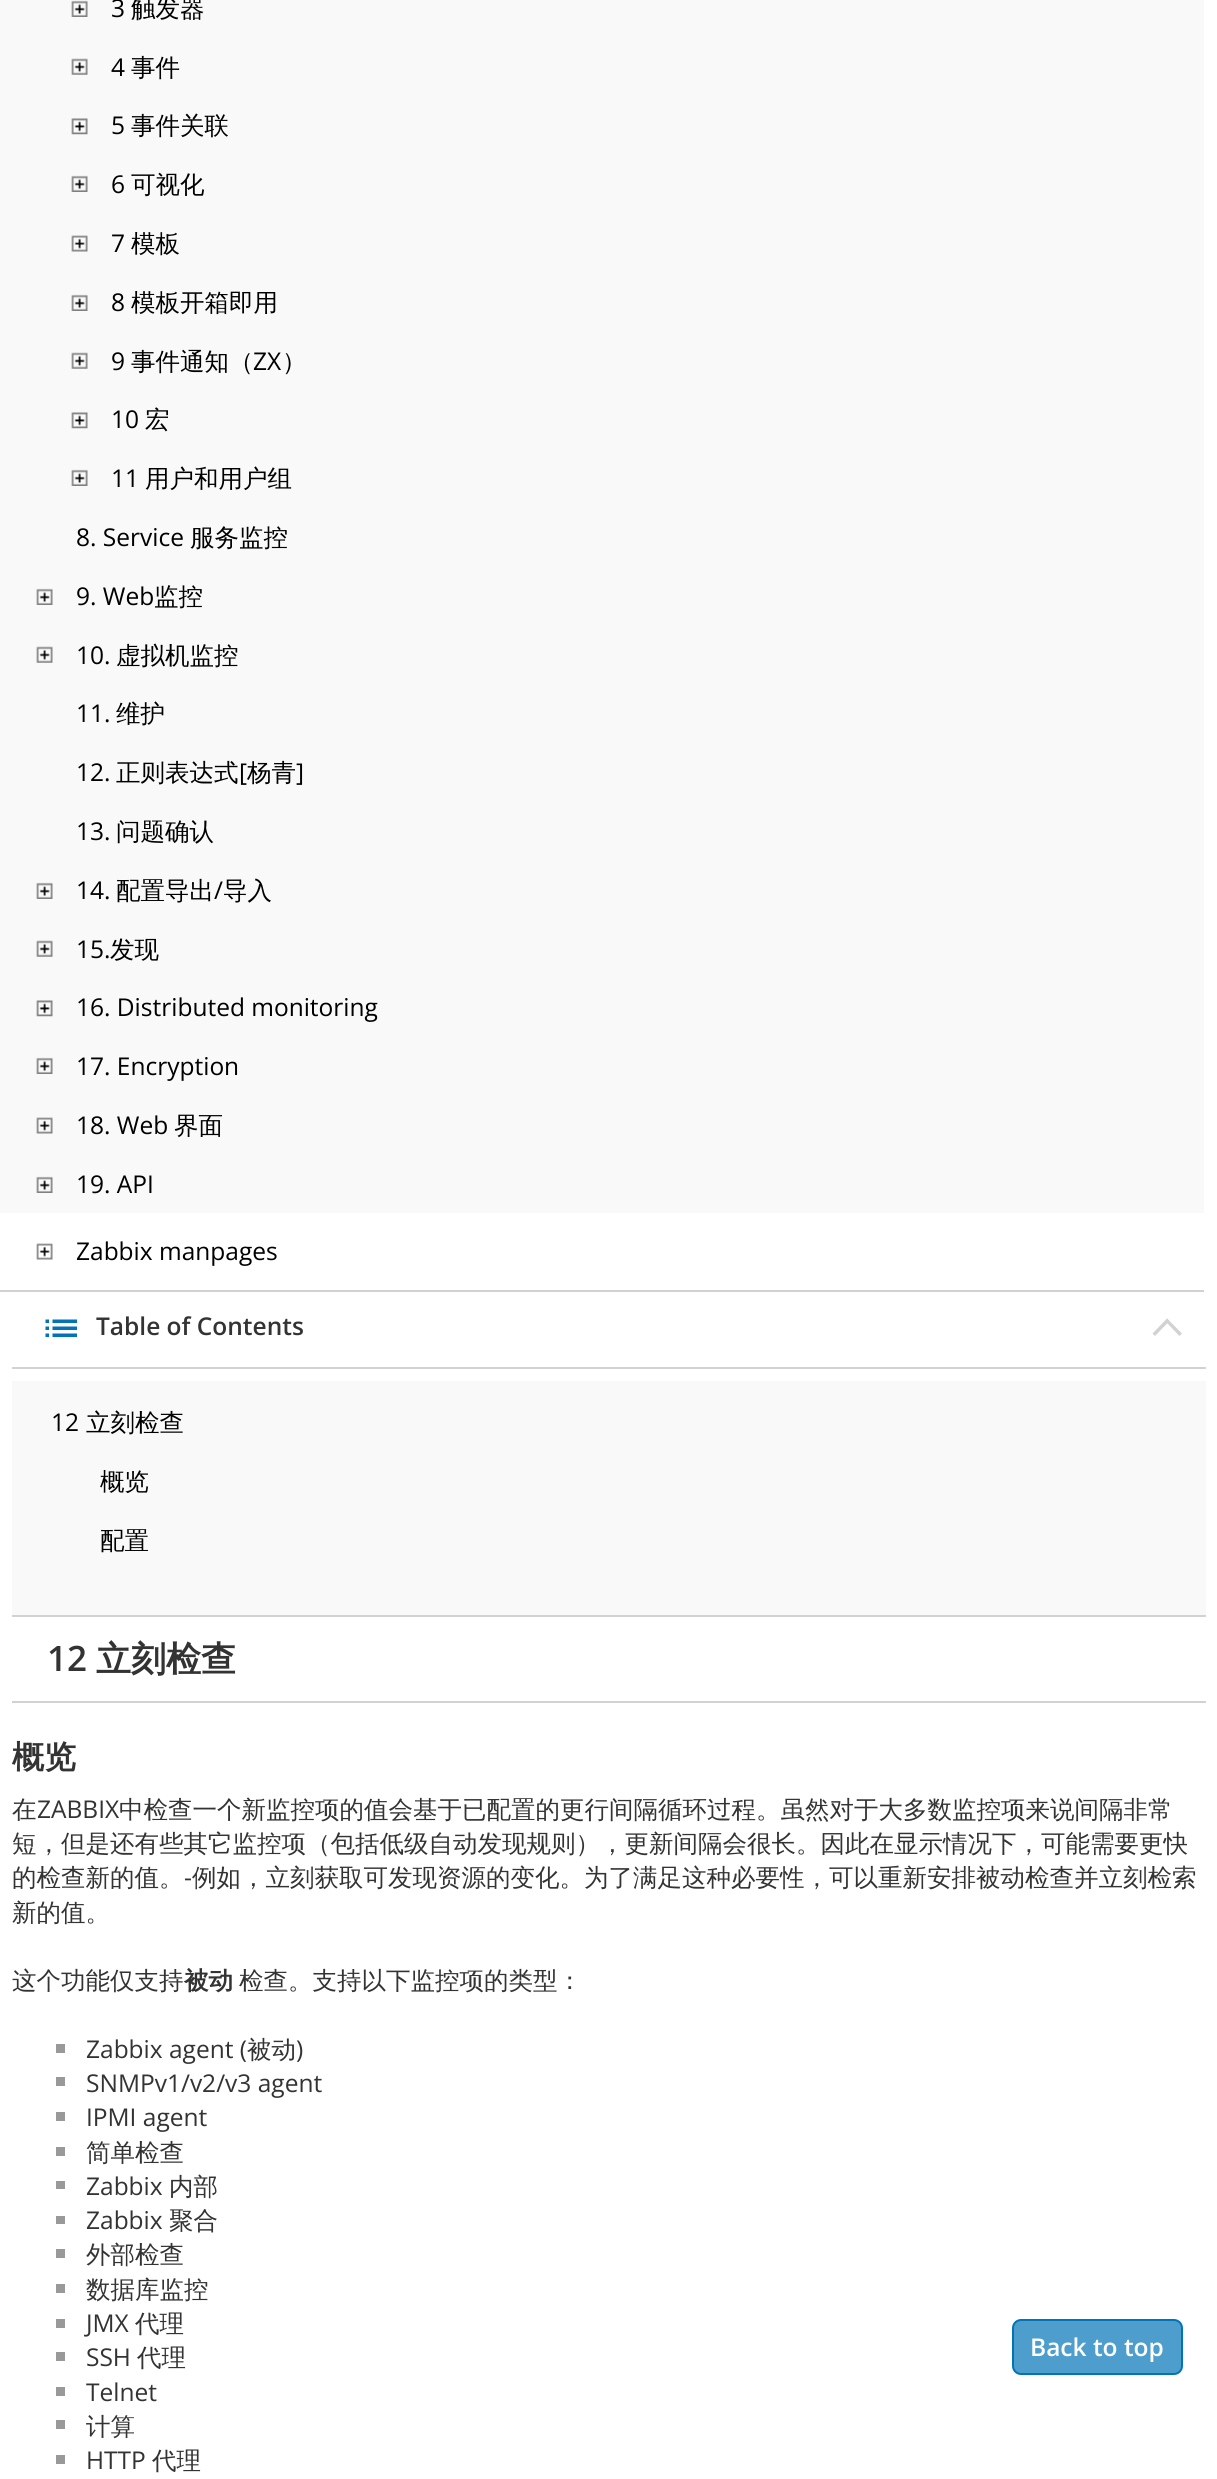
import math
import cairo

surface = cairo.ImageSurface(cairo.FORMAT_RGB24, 1217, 2479)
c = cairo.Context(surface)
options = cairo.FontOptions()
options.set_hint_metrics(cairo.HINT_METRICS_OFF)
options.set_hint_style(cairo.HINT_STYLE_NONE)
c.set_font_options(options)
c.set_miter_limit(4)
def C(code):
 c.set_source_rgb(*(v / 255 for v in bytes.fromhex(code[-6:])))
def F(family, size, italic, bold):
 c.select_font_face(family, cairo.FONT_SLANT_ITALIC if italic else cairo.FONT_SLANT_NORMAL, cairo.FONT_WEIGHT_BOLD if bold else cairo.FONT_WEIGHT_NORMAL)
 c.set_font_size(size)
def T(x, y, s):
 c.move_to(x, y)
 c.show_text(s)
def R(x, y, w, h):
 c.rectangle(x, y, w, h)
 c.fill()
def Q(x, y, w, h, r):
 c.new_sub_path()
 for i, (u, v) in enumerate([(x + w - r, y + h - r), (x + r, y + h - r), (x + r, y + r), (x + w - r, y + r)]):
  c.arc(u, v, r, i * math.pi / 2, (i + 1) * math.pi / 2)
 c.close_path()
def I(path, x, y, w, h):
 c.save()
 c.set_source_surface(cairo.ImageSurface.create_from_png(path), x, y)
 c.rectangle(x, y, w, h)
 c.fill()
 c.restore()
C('ffffff')
c.paint()
C('f9f9f9')
R(0,0,1204,1213)
I('1.png',71,0,17,17)
F('Open Sans',24.5,0,0)
C('000000')
T(111,17,'3')
F('WenQuanYi Zen Hei Medium',24.5,0,0)
T(131,17,'触发器')
I('2.png',71,58,17,17)
F('Open Sans',24.5,0,0)
T(111,76,'4')
F('WenQuanYi Zen Hei Medium',24.5,0,0)
T(131,76,'事件')
I('3.png',71,118,17,17)
F('Open Sans',24.5,0,0)
T(111,134,'5')
F('WenQuanYi Zen Hei Medium',24.5,0,0)
T(131,134,'事件关联')
I('1.png',71,175,17,17)
F('Open Sans',24.5,0,0)
T(111,193,'6')
F('WenQuanYi Zen Hei Medium',24.5,0,0)
T(131,193,'可视化')
I('4.png',71,235,17,17)
F('Open Sans',24.5,0,0)
T(111,252,'7')
F('WenQuanYi Zen Hei Medium',24.5,0,0)
T(131,252,'模板')
I('1.png',71,294,17,17)
F('Open Sans',24.5,0,0)
T(111,311,'8')
F('WenQuanYi Zen Hei Medium',24.5,0,0)
T(131,311,'模板开箱即用')
I('2.png',71,352,17,17)
F('Open Sans',24.5,0,0)
T(111,370,'9')
F('WenQuanYi Zen Hei Medium',24.5,0,0)
T(131,370,'事件通知（')
F('Open Sans',24.5,0,0)
T(253,370,'ZX')
F('WenQuanYi Zen Hei Medium',24.5,0,0)
T(282,370,'）')
I('3.png',71,412,17,17)
F('Open Sans',24.5,0,0)
T(111,428,'10')
F('WenQuanYi Zen Hei Medium',24.5,0,0)
T(145,428,'宏')
I('1.png',71,469,17,17)
F('Open Sans',24.5,0,0)
T(111,487,'11')
F('WenQuanYi Zen Hei Medium',24.5,0,0)
T(145,487,'用户和用户组')
F('Open Sans',24.5,0,0)
T(76,546,'8. Service')
F('WenQuanYi Zen Hei Medium',24.5,0,0)
T(190,546,'服务监控')
I('1.png',36,588,17,17)
F('Open Sans',24.5,0,0)
T(76,605,'9. Web')
F('WenQuanYi Zen Hei Medium',24.5,0,0)
T(154,605,'监控')
I('2.png',36,646,17,17)
F('Open Sans',24.5,0,0)
T(76,664,'10.')
F('WenQuanYi Zen Hei Medium',24.5,0,0)
T(116,664,'虚拟机监控')
F('Open Sans',24.5,0,0)
T(76,722,'11.')
F('WenQuanYi Zen Hei Medium',24.5,0,0)
T(116,722,'维护')
F('Open Sans',24.5,0,0)
T(76,781,'12.')
F('WenQuanYi Zen Hei Medium',24.5,0,0)
T(116,781,'正则表达式')
F('Open Sans',24.5,0,0)
T(239,781,'[')
F('WenQuanYi Zen Hei Medium',24.5,0,0)
T(247,781,'杨青')
F('Open Sans',24.5,0,0)
T(296,781,']')
T(76,840,'13.')
F('WenQuanYi Zen Hei Medium',24.5,0,0)
T(116,840,'问题确认')
I('1.png',36,882,17,17)
F('Open Sans',24.5,0,0)
T(76,899,'14.')
F('WenQuanYi Zen Hei Medium',24.5,0,0)
T(116,899,'配置导出')
F('Open Sans',24.5,0,0)
T(214,899,'/')
F('WenQuanYi Zen Hei Medium',24.5,0,0)
T(223,899,'导入')
I('2.png',36,940,17,17)
F('Open Sans',24.5,0,0)
T(76,958,'15.')
F('WenQuanYi Zen Hei Medium',24.5,0,0)
T(110,958,'发现')
I('3.png',36,1000,17,17)
F('Open Sans',24.5,0,0)
T(76,1016,'16. Distributed monitoring')
I('1.png',36,1057,17,17)
T(76,1075,'17. Encryption')
I('4.png',36,1117,17,17)
T(76,1134,'18. Web')
F('WenQuanYi Zen Hei Medium',24.5,0,0)
T(174,1134,'界面')
I('1.png',36,1176,17,17)
F('Open Sans',24.5,0,0)
T(76,1193,'19. API')
C('d2d2d2')
R(0,1290,1204,2)
I('5.png',36,1243,17,17)
C('000000')
T(76,1260,'Zabbix manpages')
C('d2d2d2')
R(12,1615,1194,2)
R(12,1367,1194,2)
I('6.png',45,1319,32,18)
F('Open Sans SemiBold',24.5,0,0)
C('333333')
T(96,1335,'Table of Contents')
C('d2d2d2')
c.new_path()
c.move_to(1152.5,1333.5)
c.line_to(1167,1318.5)
c.line_to(1169.5,1321)
c.line_to(1155,1336)
c.close_path()
c.fill()
c.new_path()
c.move_to(1165,1321)
c.line_to(1167,1318.5)
c.line_to(1182,1333.5)
c.line_to(1179.5,1336)
c.close_path()
c.fill()
C('f9f9f9')
R(12,1381,1194,234)
F('Open Sans',24.5,0,0)
C('000000')
T(51,1431,'12')
F('WenQuanYi Zen Hei Medium',24.5,0,0)
T(86,1431,'立刻检查')
T(100,1490,'概览')
T(100,1549,'配置')
C('d2d2d2')
R(12,1701,1194,2)
F('Open Sans SemiBold',35,0,0)
C('333333')
T(47,1671,'12')
F('WenQuanYi Zen Hei',35,0,1)
T(96,1671,'立刻检查')
F('WenQuanYi Zen Hei',32,0,1)
T(12,1768,'概览')
F('WenQuanYi Zen Hei Medium',24.5,0,0)
T(12,1818,'在')
F('Open Sans',24.5,0,0)
T(37,1818,'ZABBIX')
F('WenQuanYi Zen Hei Medium',24.5,0,0)
T(119,1818,'中检查一个新监控项的值会基于已配置的更行间隔循环过程。虽然对于大多数监控项来说间隔非常')
T(12,1852,'短，但是还有些其它监控项（包括低级自动发现规则），更新间隔会很长。因此在显示情况下，可能需要更快')
T(12,1886,'的检查新的值。')
F('Open Sans',24.5,0,0)
T(184,1886,'-')
F('WenQuanYi Zen Hei Medium',24.5,0,0)
T(192,1886,'例如，立刻获取可发现资源的变化。为了满足这种必要性，可以重新安排被动检查并立刻检索')
T(12,1921,'新的值。')
T(12,1989,'这个功能仅支持')
F('WenQuanYi Zen Hei',24.5,0,1)
T(184,1989,'被动')
F('WenQuanYi Zen Hei Medium',24.5,0,0)
T(239,1989,'检查。支持以下监控项的类型：')
C('999999')
R(56,2044,9,9)
F('Open Sans',24.5,0,0)
C('333333')
T(86,2058,'Zabbix agent (')
F('WenQuanYi Zen Hei Medium',24.5,0,0)
T(247,2058,'被动')
F('Open Sans',24.5,0,0)
T(296,2058,')')
C('999999')
R(56,2077,9,9)
C('333333')
T(86,2092,'SNMPv1/v2/v3 agent')
C('999999')
R(56,2112,9,9)
C('333333')
T(86,2126,'IPMI agent')
C('999999')
R(56,2147,9,9)
F('WenQuanYi Zen Hei Medium',24.5,0,0)
C('333333')
T(86,2161,'简单检查')
C('999999')
R(56,2181,9,8)
F('Open Sans',24.5,0,0)
C('333333')
T(86,2195,'Zabbix')
F('WenQuanYi Zen Hei Medium',24.5,0,0)
T(169,2195,'内部')
C('999999')
R(56,2216,9,8)
F('Open Sans',24.5,0,0)
C('333333')
T(86,2229,'Zabbix')
F('WenQuanYi Zen Hei Medium',24.5,0,0)
T(169,2229,'聚合')
C('999999')
R(56,2249,9,9)
C('333333')
T(86,2263,'外部检查')
C('999999')
R(56,2284,9,9)
C('333333')
T(86,2298,'数据库监控')
C('999999')
R(56,2319,9,9)
F('Open Sans',24.5,0,0)
C('333333')
T(86,2332,'JMX')
F('WenQuanYi Zen Hei Medium',24.5,0,0)
T(135,2332,'代理')
C('999999')
R(56,2352,9,9)
F('Open Sans',24.5,0,0)
C('333333')
T(86,2366,'SSH')
F('WenQuanYi Zen Hei Medium',24.5,0,0)
T(137,2366,'代理')
C('999999')
R(56,2387,9,9)
F('Open Sans',24.5,0,0)
C('333333')
T(86,2401,'Telnet')
C('999999')
R(56,2420,9,9)
F('WenQuanYi Zen Hei Medium',24.5,0,0)
C('333333')
T(86,2435,'计算')
C('999999')
R(56,2455,9,9)
F('Open Sans',24.5,0,0)
C('333333')
T(86,2469,'HTTP')
F('WenQuanYi Zen Hei Medium',24.5,0,0)
T(152,2469,'代理')
C('4e9ecd')
Q(1013,2320,169,54,8)
c.fill_preserve()
C('0174b7')
c.stroke()
F('Open Sans SemiBold',24.5,0,0)
C('ffffff')
T(1030,2356,'Back to top')
surface.write_to_png('o.png')
